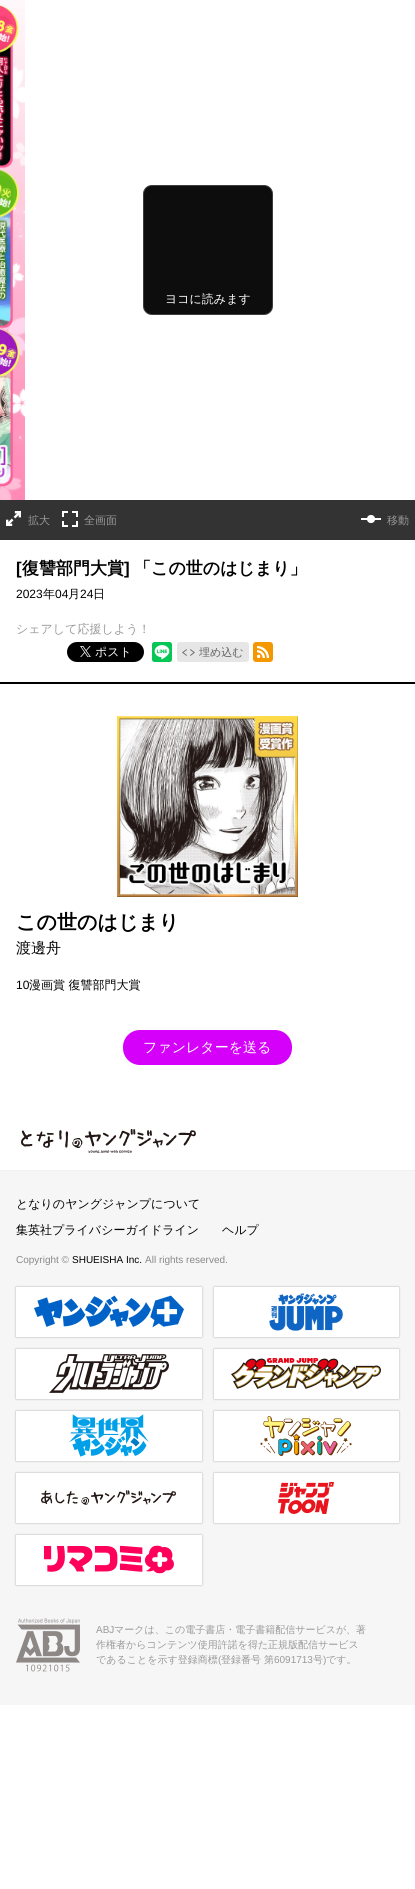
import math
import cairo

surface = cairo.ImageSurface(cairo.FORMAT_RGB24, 415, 1889)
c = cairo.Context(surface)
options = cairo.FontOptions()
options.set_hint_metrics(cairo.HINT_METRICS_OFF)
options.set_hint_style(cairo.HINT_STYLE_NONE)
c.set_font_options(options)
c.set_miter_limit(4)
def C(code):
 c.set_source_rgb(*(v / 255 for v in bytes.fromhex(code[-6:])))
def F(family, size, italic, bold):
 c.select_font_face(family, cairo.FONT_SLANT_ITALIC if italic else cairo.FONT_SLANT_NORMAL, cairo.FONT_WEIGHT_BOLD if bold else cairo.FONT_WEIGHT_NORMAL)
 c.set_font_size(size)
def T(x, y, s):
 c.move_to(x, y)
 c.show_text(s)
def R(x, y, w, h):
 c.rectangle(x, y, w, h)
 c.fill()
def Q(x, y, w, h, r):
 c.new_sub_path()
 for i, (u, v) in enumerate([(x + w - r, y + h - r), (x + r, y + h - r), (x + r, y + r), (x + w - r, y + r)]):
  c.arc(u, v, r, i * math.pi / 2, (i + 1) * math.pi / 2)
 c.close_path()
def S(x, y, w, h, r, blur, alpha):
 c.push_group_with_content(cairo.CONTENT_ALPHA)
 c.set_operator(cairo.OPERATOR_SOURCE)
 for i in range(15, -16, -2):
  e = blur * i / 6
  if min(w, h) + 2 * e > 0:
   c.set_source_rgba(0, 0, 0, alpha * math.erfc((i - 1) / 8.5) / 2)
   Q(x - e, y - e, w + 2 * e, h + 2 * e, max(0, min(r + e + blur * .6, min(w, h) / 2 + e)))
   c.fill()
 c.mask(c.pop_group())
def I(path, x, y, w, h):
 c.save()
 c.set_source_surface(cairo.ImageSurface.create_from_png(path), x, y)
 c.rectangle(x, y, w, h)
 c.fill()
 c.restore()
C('ffffff')
c.paint()
I('1.png',0,0,25,500)
C('0d0d0d')
Q(143,185,130,130,9)
c.fill()
Q(143.5,185.5,129,129,8.5)
c.set_source_rgba(1,1,1,0.2)
c.set_line_width(1)
c.stroke()
F('WenQuanYi Zen Hei Medium',12,0,0)
C('ffffff')
T(165,303,'ヨコに読みます')
C('333333')
R(0,500,415,40)
I('2.png',6,511,15,15)
F('WenQuanYi Zen Hei Medium',11,0,0)
C('999999')
T(28,524,'拡大')
I('3.png',62,511,16,16)
T(84,524,'全画面')
I('4.png',361,515,20,8)
T(387,524,'移動')
C('000000')
R(0,682,415,2)
F('Liberation Sans',17,0,1)
T(16,574,'[')
F('WenQuanYi Zen Hei',17,0,1)
T(22,574,'復讐部門大賞')
F('Liberation Sans',17,0,1)
T(124,574,']')
F('WenQuanYi Zen Hei',17,0,1)
T(134,574,'「この世のはじまり」')
F('Liberation Sans',12,0,0)
T(16,598,'2023')
F('WenQuanYi Zen Hei Medium',12,0,0)
T(43,598,'年')
F('Liberation Sans',12,0,0)
T(55,598,'04')
F('WenQuanYi Zen Hei Medium',12,0,0)
T(68,598,'月')
F('Liberation Sans',12,0,0)
T(80,598,'24')
F('WenQuanYi Zen Hei Medium',12,0,0)
T(93,598,'日')
C('999999')
T(16,633,'シェアして応援しよう！')
C('000000')
Q(67,642,77,20,10)
c.fill()
I('5.png',80,646,11,11)
C('ffffff')
T(95,656,'ポスト')
I('6.png',152,642,20,20)
C('e6e6e6')
Q(177,642,72,20,3)
c.fill()
I('7.png',182,649,13,7)
F('WenQuanYi Zen Hei Medium',11,0,0)
C('666666')
T(199,656,'埋め込む')
C('f39801')
Q(253,642,20,20,3)
c.fill()
I('8.png',257,646,12,12)
I('9.png',117,716,181,181)
F('WenQuanYi Zen Hei',20,0,1)
C('000000')
T(16,929,'この世のはじまり')
F('WenQuanYi Zen Hei Medium',15,0,0)
T(16,953,'渡邊舟')
F('Liberation Sans',12,0,0)
T(16,989,'10')
F('WenQuanYi Zen Hei Medium',12,0,0)
T(29,989,'漫画賞 復讐部門大賞')
C('d500f9')
Q(123,1030,169,35,17)
c.fill()
F('WenQuanYi Zen Hei Medium',14,0,0)
C('ffffff')
T(143,1052,'ファンレターを送る')
I('10.png',21,1129,175,24)
C('f6f6f6')
R(0,1171,415,534)
C('f0f0f0')
R(0,1170,415,1)
F('WenQuanYi Zen Hei Medium',12,0,0)
C('000000')
T(16,1208,'となりのヤングジャンプについて')
T(16,1234,'集英社プライバシーガイドライン')
T(222,1234,'ヘルプ')
F('Liberation Sans',10,0,0)
C('888888')
T(16,1263,'Copyright ©')
C('000000')
T(72,1263,'SHUEISHA Inc.')
C('888888')
T(145,1263,'All rights reserved.')
C('000000')
S(16,1287,186,50,0,1,.3)
C('ffffff')
R(16,1287,186,50)
I('11.png',34,1295,150,33)
C('000000')
S(214,1287,185,50,0,1,.3)
C('ffffff')
R(214,1287,185,50)
I('12.png',269,1293,74,38)
C('000000')
S(16,1349,186,50,0,1,.3)
C('ffffff')
R(16,1349,186,50)
I('13.png',49,1354,120,39)
C('000000')
S(214,1349,185,50,0,1,.3)
C('ffffff')
R(214,1349,185,50)
I('14.png',231,1358,150,31)
C('000000')
S(16,1411,186,50,0,1,.3)
C('ffffff')
R(16,1411,186,50)
I('15.png',69,1414,80,43)
C('000000')
S(214,1411,185,50,0,1,.3)
C('ffffff')
R(214,1411,185,50)
I('16.png',260,1416,92,40)
C('000000')
S(16,1473,186,50,0,1,.3)
C('ffffff')
R(16,1473,186,50)
I('17.png',41,1490,135,15)
C('000000')
S(214,1473,185,50,0,1,.3)
C('ffffff')
R(214,1473,185,50)
I('18.png',278,1482,56,32)
C('000000')
S(16,1535,186,50,0,1,.3)
C('ffffff')
R(16,1535,186,50)
I('19.png',44,1545,130,29)
I('20.png',16,1618,64,54)
C('999999')
T(96,1633,'ABJ')
F('WenQuanYi Zen Hei Medium',10,0,0)
T(114,1633,'マークは、この電子書店・電子書籍配信サービスが、著')
T(96,1648,'作権者からコンテンツ使用許諾を得た正規版配信サービス')
T(96,1663,'であることを示す登録商標')
F('Liberation Sans',10,0,0)
T(218,1663,'(')
F('WenQuanYi Zen Hei Medium',10,0,0)
T(221,1663,'登録番号 第')
F('Liberation Sans',10,0,0)
T(274,1663,'6091713')
F('WenQuanYi Zen Hei Medium',10,0,0)
T(313,1663,'号')
F('Liberation Sans',10,0,0)
T(323,1663,')')
F('WenQuanYi Zen Hei Medium',10,0,0)
T(326,1663,'です。')
surface.write_to_png('o.png')
